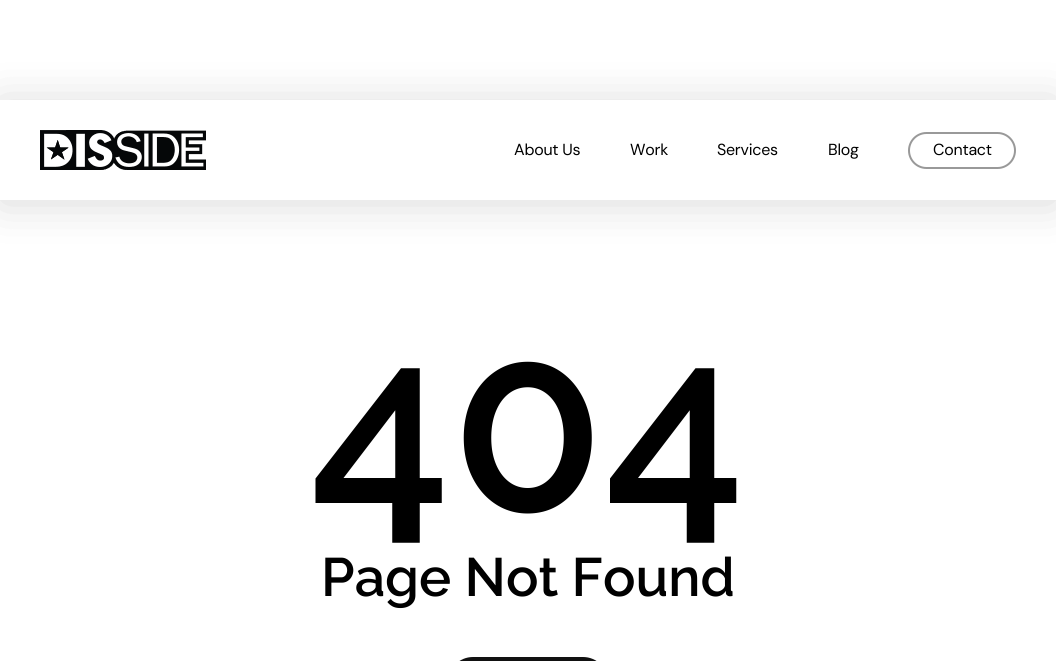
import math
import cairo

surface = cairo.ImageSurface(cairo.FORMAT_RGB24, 1056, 661)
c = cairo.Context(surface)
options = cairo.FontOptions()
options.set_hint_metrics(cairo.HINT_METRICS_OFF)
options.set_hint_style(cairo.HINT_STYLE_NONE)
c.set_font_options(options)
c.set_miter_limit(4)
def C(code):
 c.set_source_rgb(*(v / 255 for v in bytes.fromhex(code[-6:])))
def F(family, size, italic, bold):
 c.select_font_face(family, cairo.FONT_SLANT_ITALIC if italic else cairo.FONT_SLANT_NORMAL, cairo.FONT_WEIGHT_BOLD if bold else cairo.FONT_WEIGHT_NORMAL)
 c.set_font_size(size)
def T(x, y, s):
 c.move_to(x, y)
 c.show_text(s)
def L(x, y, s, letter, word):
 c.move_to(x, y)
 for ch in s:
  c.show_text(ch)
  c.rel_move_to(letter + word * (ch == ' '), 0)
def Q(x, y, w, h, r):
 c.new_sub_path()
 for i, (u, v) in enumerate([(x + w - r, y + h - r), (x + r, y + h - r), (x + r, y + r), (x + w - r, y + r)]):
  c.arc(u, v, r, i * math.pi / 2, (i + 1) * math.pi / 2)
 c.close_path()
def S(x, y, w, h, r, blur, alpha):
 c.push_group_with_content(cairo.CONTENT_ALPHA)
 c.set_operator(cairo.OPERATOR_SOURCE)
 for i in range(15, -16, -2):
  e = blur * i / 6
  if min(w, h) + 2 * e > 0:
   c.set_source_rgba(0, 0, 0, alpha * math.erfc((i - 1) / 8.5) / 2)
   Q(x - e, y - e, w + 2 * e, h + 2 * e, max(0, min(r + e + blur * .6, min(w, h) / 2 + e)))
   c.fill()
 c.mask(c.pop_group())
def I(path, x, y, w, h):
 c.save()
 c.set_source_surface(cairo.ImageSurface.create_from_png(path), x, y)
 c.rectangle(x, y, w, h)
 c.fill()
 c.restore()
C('ffffff')
c.paint()
c.save()
c.set_fill_rule(cairo.FILL_RULE_EVEN_ODD)
c.new_path()
c.move_to(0,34)
c.line_to(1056,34)
c.line_to(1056,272)
c.line_to(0,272)
c.close_path()
c.move_to(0,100)
c.line_to(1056,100)
c.line_to(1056,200)
c.line_to(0,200)
c.close_path()
c.clip()
C('000000')
S(0,103,1056,100,0,22.5,.15)
c.restore()
I('1.png',40,130,166,40)
F('DM Sans',16,0,0)
C('000000')
L(514,155,'About Us',-.25,0)
L(630,155,'Work',-.25,0)
L(717,155,'Services',-.25,0)
L(828,155,'Blog',-.25,0)
Q(909,133,106,35,17.5)
C('999999')
c.stroke()
C('000000')
L(933,155,'Contact',-.25,0)
F('Raleway Thin',250,0,0)
T(310,511,'404')
F('Raleway Thin',54,0,0)
T(321,596,'Page Not Found')
C('111111')
Q(448,657,160,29,25)
c.fill()
surface.write_to_png('o.png')
